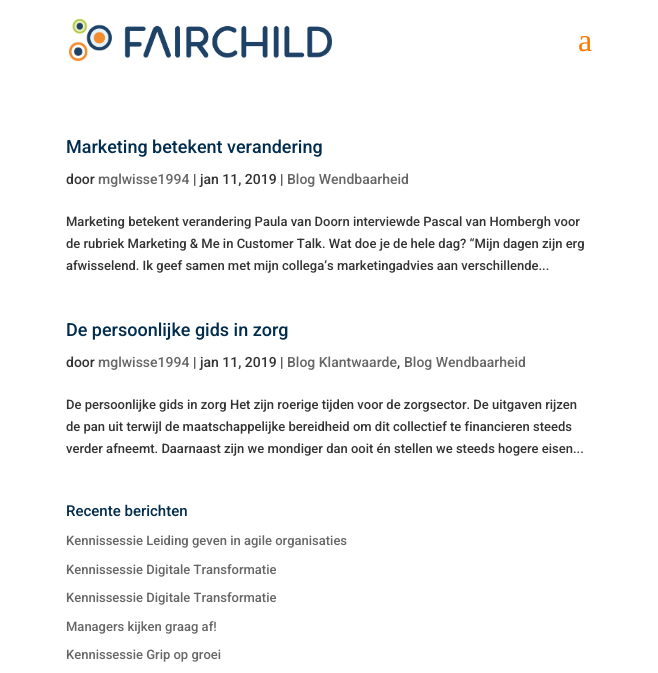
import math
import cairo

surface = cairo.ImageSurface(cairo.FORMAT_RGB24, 658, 673)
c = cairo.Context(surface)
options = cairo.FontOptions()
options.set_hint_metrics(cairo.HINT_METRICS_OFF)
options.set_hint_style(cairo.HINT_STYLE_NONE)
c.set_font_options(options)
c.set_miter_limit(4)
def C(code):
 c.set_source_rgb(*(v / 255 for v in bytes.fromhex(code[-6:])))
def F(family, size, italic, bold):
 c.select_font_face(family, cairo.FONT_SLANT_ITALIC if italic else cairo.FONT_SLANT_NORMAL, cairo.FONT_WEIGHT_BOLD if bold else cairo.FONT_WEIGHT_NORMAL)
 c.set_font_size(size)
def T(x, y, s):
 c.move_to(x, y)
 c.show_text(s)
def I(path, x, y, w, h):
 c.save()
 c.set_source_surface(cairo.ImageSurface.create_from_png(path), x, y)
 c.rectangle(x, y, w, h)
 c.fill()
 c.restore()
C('ffffff')
c.paint()
I('1.png',69,19,263,42)
F('Liberation Serif',32,0,0)
C('ff7800')
T(578,51,'a')
F('Roboto Medium',18,0,0)
C('012c4d')
T(66,153,'Marketing betekent verandering')
F('Roboto Medium',14,0,0)
C('333333')
T(66,184,'door')
C('666666')
T(98,184,'mglwisse1994')
C('333333')
T(193,184,'| jan 11, 2019 |')
C('666666')
T(287,184,'Blog Wendbaarheid')
F('Roboto Medium',13,0,0)
C('333333')
T(66,226,'Marketing betekent verandering Paula van Doorn interviewde Pascal van Hombergh voor')
T(66,248,'de rubriek Marketing & Me in Customer Talk. Wat doe je de hele dag? “Mijn dagen zijn erg')
T(66,270,'afwisselend. Ik geef samen met mijn collega’s marketingadvies aan verschillende...')
F('Roboto Medium',18,0,0)
C('012c4d')
T(66,336,'De persoonlijke gids in zorg')
F('Roboto Medium',14,0,0)
C('333333')
T(66,367,'door')
C('666666')
T(98,367,'mglwisse1994')
C('333333')
T(193,367,'| jan 11, 2019 |')
C('666666')
T(287,367,'Blog Klantwaarde')
C('333333')
T(397,367,',')
C('666666')
T(404,367,'Blog Wendbaarheid')
F('Roboto Medium',13,0,0)
C('333333')
T(66,409,'De persoonlijke gids in zorg Het zijn roerige tijden voor de zorgsector. De uitgaven rijzen')
T(66,431,'de pan uit terwijl de maatschappelijke bereidheid om dit collectief te financieren steeds')
T(66,453,'verder afneemt. Daarnaast zijn we mondiger dan ooit én stellen we steeds hogere eisen...')
F('Roboto Medium',15,0,0)
C('012c4d')
T(66,516,'Recente berichten')
F('Roboto Medium',13,0,0)
C('666666')
T(66,545,'Kennissessie Leiding geven in agile organisaties')
T(66,574,'Kennissessie Digitale Transformatie')
T(66,602,'Kennissessie Digitale Transformatie')
T(66,631,'Managers kijken graag af!')
T(66,659,'Kennissessie Grip op groei')
surface.write_to_png('o.png')
